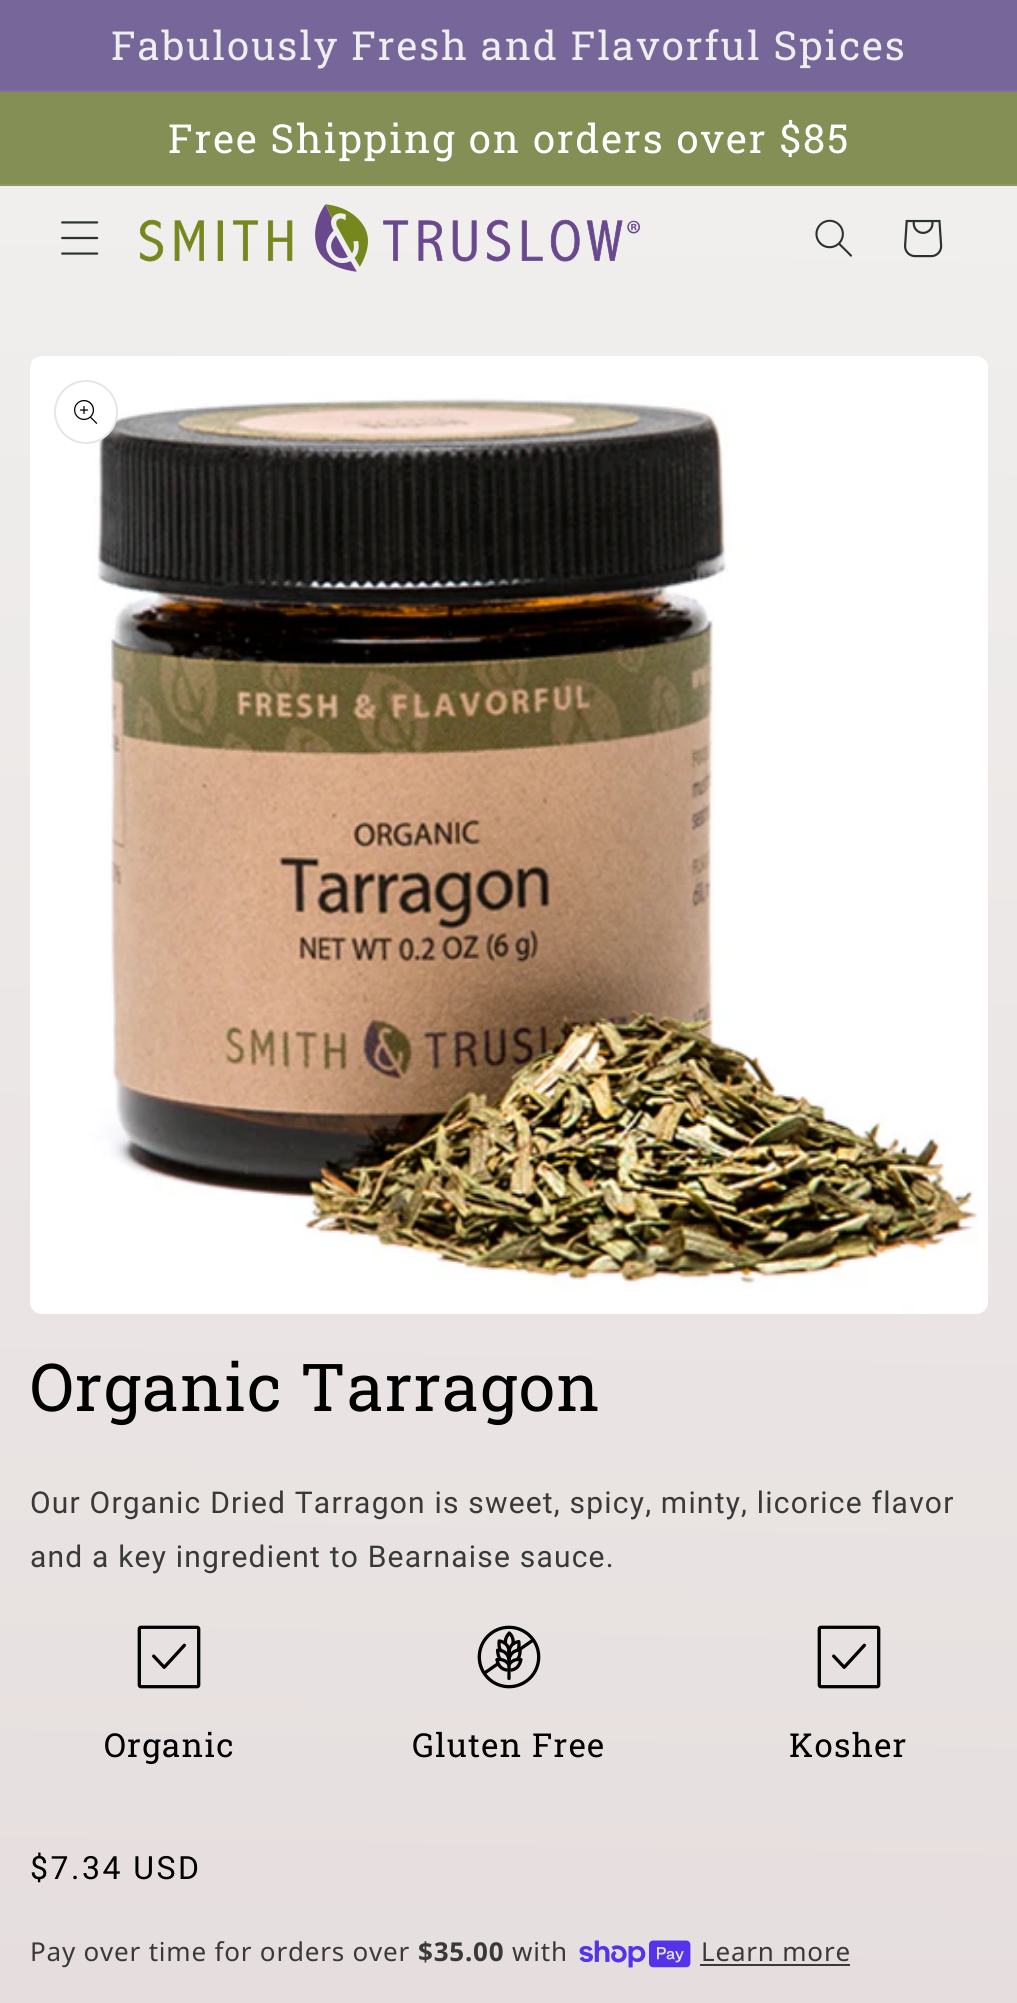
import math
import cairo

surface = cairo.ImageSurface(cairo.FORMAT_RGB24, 1017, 2003)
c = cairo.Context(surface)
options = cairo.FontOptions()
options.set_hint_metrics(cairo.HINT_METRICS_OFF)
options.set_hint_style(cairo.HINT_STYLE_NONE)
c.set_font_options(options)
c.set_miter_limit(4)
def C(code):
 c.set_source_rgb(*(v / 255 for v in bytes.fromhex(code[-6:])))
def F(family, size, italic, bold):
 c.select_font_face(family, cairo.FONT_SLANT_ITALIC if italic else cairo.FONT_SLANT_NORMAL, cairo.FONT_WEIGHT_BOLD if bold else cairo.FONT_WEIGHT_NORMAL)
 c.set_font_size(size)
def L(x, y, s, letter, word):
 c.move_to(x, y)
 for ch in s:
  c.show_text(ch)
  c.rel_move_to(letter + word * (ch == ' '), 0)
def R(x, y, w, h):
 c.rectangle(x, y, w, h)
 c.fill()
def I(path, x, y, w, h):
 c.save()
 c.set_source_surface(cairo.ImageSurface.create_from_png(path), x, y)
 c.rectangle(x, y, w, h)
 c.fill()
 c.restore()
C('ffffff')
c.paint()
gradient = cairo.LinearGradient(491,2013,527,-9)
gradient.add_color_stop_rgba(.01,0.902,0.871,0.871,1)
gradient.add_color_stop_rgba(1,0.945,0.945,0.937,1)
c.set_source(gradient)
R(0,186,1017,1817)
C('76669a')
R(0,0,1017,90)
C('8071a1')
R(0,90,1017,2)
F('Roboto Slab',40,0,0)
C('eeeeee')
L(111,60,'Fabulously Fresh and Flavorful Spices',2,0)
C('848f56')
R(0,92,1017,92)
C('8e9864')
R(0,184,1017,2)
C('ffffff')
L(168,153,'Free Shipping on orders over $85',2,0)
I('1.png',61,221,38,34)
I('2.png',140,204,500,68)
I('3.png',815,219,37,38)
I('4.png',904,219,39,39)
I('5.png',30,356,958,958)
c.arc(86,412,32,0,2 * math.pi)
c.fill()
c.arc(86,412,31,0,2 * math.pi)
c.set_source_rgba(0,0,0,0.1)
c.stroke()
I('6.png',74,400,24,24)
F('Roboto Slab',66,0,0)
C('000000')
L(30,1411,'Organic Tarragon',1.3,0)
F('Roboto',30,0,0)
C('3a3939')
L(30,1513,'Our Organic Dried Tarragon is sweet, spicy, minty, licorice flavor',1.2,0)
L(30,1567,'and a key ingredient to Bearnaise sauce.',1.2,0)
I('7.png',137,1625,64,64)
F('Roboto Slab',33,0,0)
C('000000')
L(104,1757,'Organic',1.3,0)
I('8.png',477,1625,64,64)
L(412,1757,'Gluten Free',1.3,0)
I('9.png',817,1625,64,64)
L(789,1757,'Kosher',1.3,0)
F('Roboto',32,0,0)
L(30,1879,'$7.34 USD',2.5,0)
F('Noto Sans',26,0,0)
C('3a3939')
L(30,1961,'Pay over time for orders over',.8,0)
F('Noto Sans',26,0,1)
L(418,1961,'$35.00',.8,0)
F('Noto Sans',26,0,0)
L(512,1961,'with',.8,0)
I('10.png',579,1940,112,28)
L(701,1961,'Learn more',.8,0)
C('3a3838')
R(700,1964,150,2)
surface.write_to_png('o.png')
